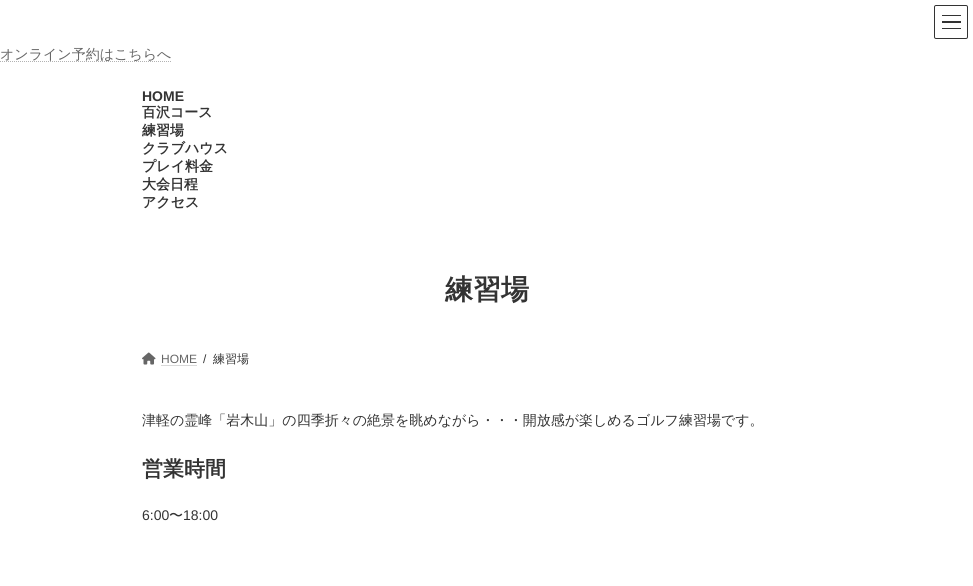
import math
import cairo

surface = cairo.ImageSurface(cairo.FORMAT_RGB24, 973, 586)
c = cairo.Context(surface)
options = cairo.FontOptions()
options.set_hint_metrics(cairo.HINT_METRICS_OFF)
options.set_hint_style(cairo.HINT_STYLE_NONE)
c.set_font_options(options)
c.set_miter_limit(4)
def C(code):
 c.set_source_rgb(*(v / 255 for v in bytes.fromhex(code[-6:])))
def F(family, size, italic, bold):
 c.select_font_face(family, cairo.FONT_SLANT_ITALIC if italic else cairo.FONT_SLANT_NORMAL, cairo.FONT_WEIGHT_BOLD if bold else cairo.FONT_WEIGHT_NORMAL)
 c.set_font_size(size)
def T(x, y, s):
 c.move_to(x, y)
 c.show_text(s)
def R(x, y, w, h):
 c.rectangle(x, y, w, h)
 c.fill()
def Q(x, y, w, h, r):
 c.new_sub_path()
 for i, (u, v) in enumerate([(x + w - r, y + h - r), (x + r, y + h - r), (x + r, y + r), (x + w - r, y + r)]):
  c.arc(u, v, r, i * math.pi / 2, (i + 1) * math.pi / 2)
 c.close_path()
def I(path, x, y, w, h):
 c.save()
 c.set_source_surface(cairo.ImageSurface.create_from_png(path), x, y)
 c.rectangle(x, y, w, h)
 c.fill()
 c.restore()
C('ffffff')
c.paint()
C('333333')
R(942,15,19,1)
R(942,21,19,2)
R(942,28,19,1)
Q(934.5,5.5,33,33,1.5)
c.set_line_width(1)
c.stroke()
c.new_path()
c.move_to(0,61.5)
c.line_to(171.5,61.5)
C('b3b3b3')
c.set_dash([1,1])
c.stroke()
F('WenQuanYi Zen Hei Medium',14,0,0)
C('666666')
T(0,59,'オンライン予約はこちらへ')
F('Liberation Sans',14,0,1)
C('333333')
T(142,101,'HOME')
F('WenQuanYi Zen Hei',14,0,1)
T(142,117,'百沢コース')
T(142,135,'練習場')
T(142,153,'クラブハウス')
T(142,171,'プレイ料金')
T(142,189,'大会日程')
T(142,207,'アクセス')
F('WenQuanYi Zen Hei',28,0,1)
T(445,299,'練習場')
I('1.png',142,352,14,13)
F('Liberation Sans',12,0,0)
C('666666')
T(161,363,'HOME')
c.new_path()
c.move_to(161.5,365.5)
c.line_to(197.5,365.5)
C('b3b3b3')
c.stroke()
C('333333')
T(203,363,'/')
F('WenQuanYi Zen Hei Medium',12,0,0)
T(213,363,'練習場')
F('WenQuanYi Zen Hei Medium',14,0,0)
T(142,425,'津軽の霊峰「岩木山」の四季折々の絶景を眺めながら・・・開放感が楽しめるゴルフ練習場です。')
F('WenQuanYi Zen Hei',21,0,1)
T(142,476,'営業時間')
F('Liberation Sans',14,0,0)
T(142,520,'6:00')
F('WenQuanYi Zen Hei Medium',14,0,0)
T(169,520,'〜')
F('Liberation Sans',14,0,0)
T(183,520,'18:00')
surface.write_to_png('o.png')
